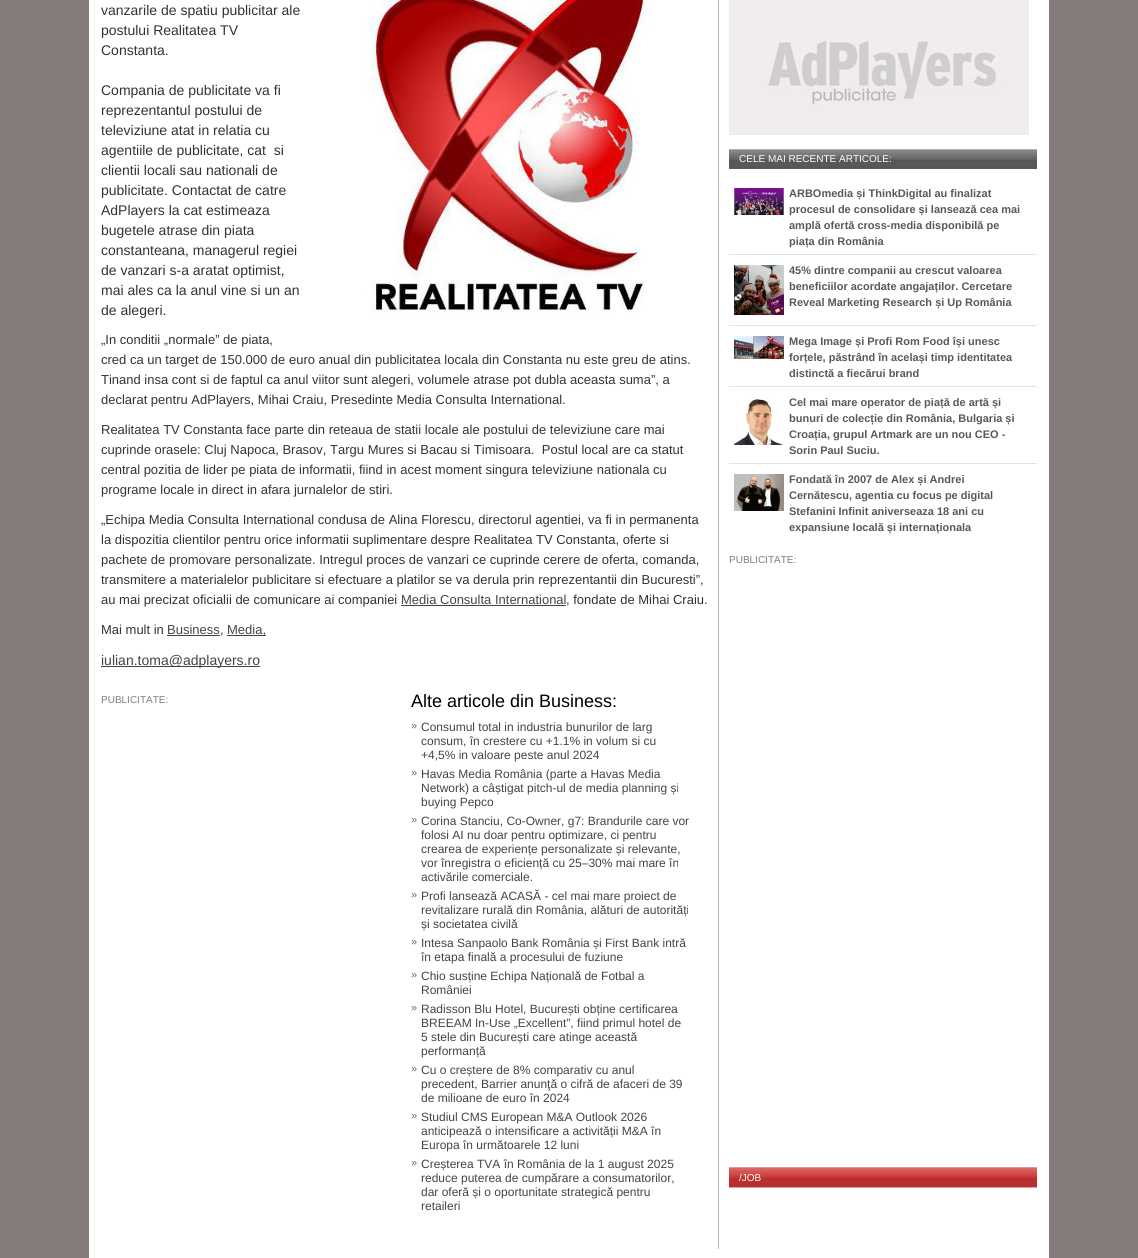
import math
import cairo

surface = cairo.ImageSurface(cairo.FORMAT_RGB24, 1138, 1258)
c = cairo.Context(surface)
options = cairo.FontOptions()
options.set_hint_metrics(cairo.HINT_METRICS_OFF)
options.set_hint_style(cairo.HINT_STYLE_NONE)
c.set_font_options(options)
c.set_miter_limit(4)
def C(code):
 c.set_source_rgb(*(v / 255 for v in bytes.fromhex(code[-6:])))
def F(family, size, italic, bold):
 c.select_font_face(family, cairo.FONT_SLANT_ITALIC if italic else cairo.FONT_SLANT_NORMAL, cairo.FONT_WEIGHT_BOLD if bold else cairo.FONT_WEIGHT_NORMAL)
 c.set_font_size(size)
def T(x, y, s):
 c.move_to(x, y)
 c.show_text(s)
def R(x, y, w, h):
 c.rectangle(x, y, w, h)
 c.fill()
def I(path, x, y, w, h):
 c.save()
 c.set_source_surface(cairo.ImageSurface.create_from_png(path), x, y)
 c.rectangle(x, y, w, h)
 c.fill()
 c.restore()
C('837c7a')
c.paint()
C('ffffff')
R(89,0,960,1258)
C('b7b7b7')
R(718,0,1,1249)
F('Liberation Sans',14,0,0)
C('333333')
T(101,15,'vanzarile de spatiu publicitar ale')
I('1.png',366,0,284,313)
T(101,35,'postului Realitatea TV')
T(101,55,'Constanta.')
T(101,95,'Compania de publicitate va fi')
T(101,115,'reprezentantul postului de')
T(101,135,'televiziune atat in relatia cu')
T(101,155,'agentiile de publicitate, cat  si')
T(101,175,'clientii locali sau nationali de')
T(101,195,'publicitate. Contactat de catre')
T(101,215,'AdPlayers la cat estimeaza')
T(101,235,'bugetele atrase din piata')
T(101,255,'constanteana, managerul regiei')
T(101,275,'de vanzari s-a aratat optimist,')
T(101,295,'mai ales ca la anul vine si un an')
T(101,315,'de alegeri.')
F('Liberation Sans',13,0,0)
T(101,344,'„In conditii „normale” de piata,')
T(101,364,'cred ca un target de 150.000 de euro anual din publicitatea locala din Constanta nu este greu de atins.')
T(101,384,'Tinand insa cont si de faptul ca anul viitor sunt alegeri, volumele atrase pot dubla aceasta suma”, a')
T(101,404,'declarat pentru AdPlayers, Mihai Craiu, Presedinte Media Consulta International.')
T(101,434,'Realitatea TV Constanta face parte din reteaua de statii locale ale postului de televiziune care mai')
T(101,454,'cuprinde orasele: Cluj Napoca, Brasov, Targu Mures si Bacau si Timisoara.  Postul local are ca statut')
T(101,474,'central pozitia de lider pe piata de informatii, fiind in acest moment singura televiziune nationala cu')
T(101,494,'programe locale in direct in afara jurnalelor de stiri.')
T(101,524,'„Echipa Media Consulta International condusa de Alina Florescu, directorul agentiei, va fi in permanenta')
T(101,544,'la dispozitia clientilor pentru orice informatii suplimentare despre Realitatea TV Constanta, oferte si')
T(101,564,'pachete de promovare personalizate. Intregul proces de vanzari ce cuprinde cerere de oferta, comanda,')
T(101,584,'transmitere a materialelor publicitare si efectuare a platilor se va derula prin reprezentantii din Bucuresti”,')
T(101,604,'au mai precizat oficialii de comunicare ai companiei')
C('444444')
T(401,604,'Media Consulta International')
R(401,605,165,1)
C('333333')
T(566,604,', fondate de Mihai Craiu.')
T(101,634,'Mai mult in')
C('444444')
T(167,634,'Business')
C('333333')
T(220,634,',')
C('444444')
R(167,635,53,1)
R(227,635,39,1)
T(227,634,'Media,')
R(101,666,159,1)
F('Liberation Sans',14,0,0)
T(101,665,'iulian.toma@adplayers.ro')
F('Liberation Sans',10,0,0)
C('7b7b7b')
T(101,703,'PUBLICITATE:')
F('Liberation Sans',18,0,0)
C('000000')
T(411,707,'Alte articole din Business:')
F('Liberation Sans',11,0,0)
C('6a6a6a')
T(411,729,'»')
F('Liberation Sans',12,0,0)
C('444444')
T(421,731,'Consumul total in industria bunurilor de larg')
T(421,745,'consum, în crestere cu +1.1% in volum si cu')
T(421,759,'+4,5% in valoare peste anul 2024')
F('Liberation Sans',11,0,0)
C('6a6a6a')
T(411,776,'»')
F('Liberation Sans',12,0,0)
C('444444')
T(421,778,'Havas Media România (parte a Havas Media')
T(421,792,'Network) a câștigat pitch-ul de media planning și')
T(421,806,'buying Pepco')
F('Liberation Sans',11,0,0)
C('6a6a6a')
T(411,823,'»')
F('Liberation Sans',12,0,0)
C('444444')
T(421,825,'Corina Stanciu, Co-Owner, g7: Brandurile care vor')
T(421,839,'folosi AI nu doar pentru optimizare, ci pentru')
T(421,853,'crearea de experiențe personalizate și relevante,')
T(421,867,'vor înregistra o eficiență cu 25–30% mai mare în')
T(421,881,'activările comerciale.')
F('Liberation Sans',11,0,0)
C('6a6a6a')
T(411,898,'»')
F('Liberation Sans',12,0,0)
C('444444')
T(421,900,'Profi lansează ACASĂ - cel mai mare proiect de')
T(421,914,'revitalizare rurală din România, alături de autorități')
T(421,928,'și societatea civilă')
F('Liberation Sans',11,0,0)
C('6a6a6a')
T(411,945,'»')
F('Liberation Sans',12,0,0)
C('444444')
T(421,947,'Intesa Sanpaolo Bank România și First Bank intră')
T(421,961,'în etapa finală a procesului de fuziune')
F('Liberation Sans',11,0,0)
C('6a6a6a')
T(411,978,'»')
F('Liberation Sans',12,0,0)
C('444444')
T(421,980,'Chio susține Echipa Națională de Fotbal a')
T(421,994,'României')
F('Liberation Sans',11,0,0)
C('6a6a6a')
T(411,1011,'»')
F('Liberation Sans',12,0,0)
C('444444')
T(421,1013,'Radisson Blu Hotel, București obține certificarea')
T(421,1027,'BREEAM In-Use „Excellent”, fiind primul hotel de')
T(421,1041,'5 stele din București care atinge această')
T(421,1055,'performanță')
F('Liberation Sans',11,0,0)
C('6a6a6a')
T(411,1072,'»')
F('Liberation Sans',12,0,0)
C('444444')
T(421,1074,'Cu o creștere de 8% comparativ cu anul')
T(421,1088,'precedent, Barrier anunţă o cifră de afaceri de 39')
T(421,1102,'de milioane de euro în 2024')
F('Liberation Sans',11,0,0)
C('6a6a6a')
T(411,1119,'»')
F('Liberation Sans',12,0,0)
C('444444')
T(421,1121,'Studiul CMS European M&A Outlook 2026')
T(421,1135,'anticipează o intensificare a activității M&A în')
T(421,1149,'Europa în următoarele 12 luni')
F('Liberation Sans',11,0,0)
C('6a6a6a')
T(411,1166,'»')
F('Liberation Sans',12,0,0)
C('444444')
T(421,1168,'Creșterea TVA în România de la 1 august 2025')
T(421,1182,'reduce puterea de cumpărare a consumatorilor,')
T(421,1196,'dar oferă și o oportunitate strategică pentru')
T(421,1210,'retaileri')
I('2.png',729,0,300,135)
I('3.png',729,149,308,20)
F('Liberation Sans',10,0,0)
C('ffffff')
T(739,162,'CELE MAI RECENTE ARTICOLE:')
C('e4e4e4')
R(729,254,308,1)
I('4.png',734,188,50,27)
F('Liberation Sans',11,0,1)
C('595959')
T(789,197,'ARBOmedia și ThinkDigital au finalizat')
T(789,213,'procesul de consolidare și lansează cea mai')
T(789,229,'amplă ofertă cross-media disponibilă pe')
T(789,245,'piața din România')
C('e4e4e4')
R(729,325,308,1)
I('5.png',734,265,50,50)
C('595959')
T(789,274,'45% dintre companii au crescut valoarea')
T(789,290,'beneficiilor acordate angajaților. Cercetare')
T(789,306,'Reveal Marketing Research și Up România')
C('e4e4e4')
R(729,386,308,1)
I('6.png',734,336,50,23)
C('595959')
T(789,345,'Mega Image și Profi Rom Food își unesc')
T(789,361,'forțele, păstrând în același timp identitatea')
T(789,377,'distinctă a fiecărui brand')
C('e4e4e4')
R(729,463,308,1)
I('7.png',734,397,50,48)
C('595959')
T(789,406,'Cel mai mare operator de piață de artă și')
T(789,422,'bunuri de colecție din România, Bulgaria și')
T(789,438,'Croația, grupul Artmark are un nou CEO -')
T(789,454,'Sorin Paul Suciu.')
I('8.png',734,474,50,37)
T(789,483,'Fondată în 2007 de Alex și Andrei')
T(789,499,'Cernătescu, agentia cu focus pe digital')
T(789,515,'Stefanini Infinit aniverseaza 18 ani cu')
T(789,531,'expansiune locală și internaționala')
F('Liberation Sans',10,0,0)
C('7b7b7b')
T(729,563,'PUBLICITATE:')
I('9.png',729,1167,308,21)
C('ffffff')
T(739,1181,'/JOB')
surface.write_to_png('o.png')
